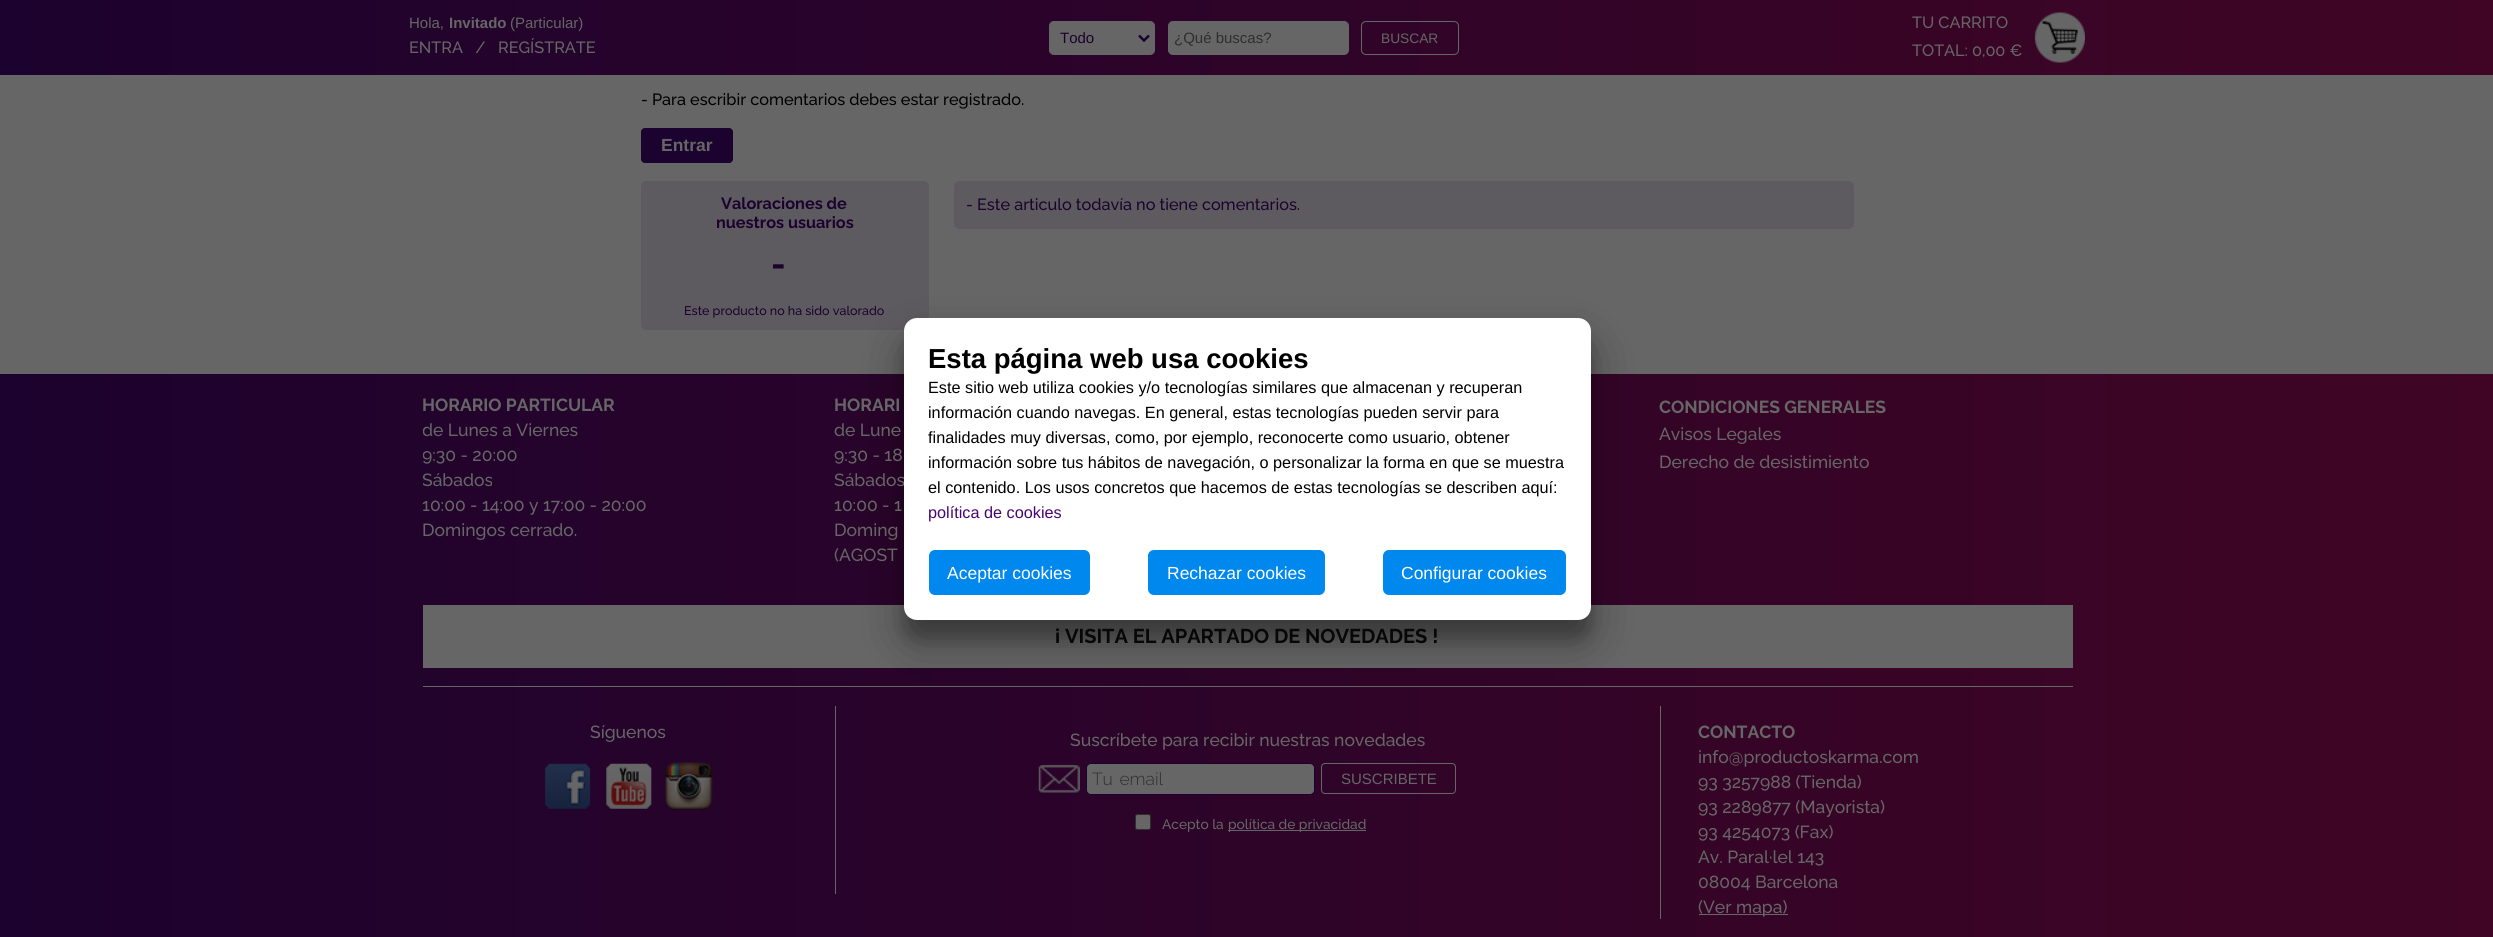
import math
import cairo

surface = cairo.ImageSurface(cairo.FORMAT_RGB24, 2493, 937)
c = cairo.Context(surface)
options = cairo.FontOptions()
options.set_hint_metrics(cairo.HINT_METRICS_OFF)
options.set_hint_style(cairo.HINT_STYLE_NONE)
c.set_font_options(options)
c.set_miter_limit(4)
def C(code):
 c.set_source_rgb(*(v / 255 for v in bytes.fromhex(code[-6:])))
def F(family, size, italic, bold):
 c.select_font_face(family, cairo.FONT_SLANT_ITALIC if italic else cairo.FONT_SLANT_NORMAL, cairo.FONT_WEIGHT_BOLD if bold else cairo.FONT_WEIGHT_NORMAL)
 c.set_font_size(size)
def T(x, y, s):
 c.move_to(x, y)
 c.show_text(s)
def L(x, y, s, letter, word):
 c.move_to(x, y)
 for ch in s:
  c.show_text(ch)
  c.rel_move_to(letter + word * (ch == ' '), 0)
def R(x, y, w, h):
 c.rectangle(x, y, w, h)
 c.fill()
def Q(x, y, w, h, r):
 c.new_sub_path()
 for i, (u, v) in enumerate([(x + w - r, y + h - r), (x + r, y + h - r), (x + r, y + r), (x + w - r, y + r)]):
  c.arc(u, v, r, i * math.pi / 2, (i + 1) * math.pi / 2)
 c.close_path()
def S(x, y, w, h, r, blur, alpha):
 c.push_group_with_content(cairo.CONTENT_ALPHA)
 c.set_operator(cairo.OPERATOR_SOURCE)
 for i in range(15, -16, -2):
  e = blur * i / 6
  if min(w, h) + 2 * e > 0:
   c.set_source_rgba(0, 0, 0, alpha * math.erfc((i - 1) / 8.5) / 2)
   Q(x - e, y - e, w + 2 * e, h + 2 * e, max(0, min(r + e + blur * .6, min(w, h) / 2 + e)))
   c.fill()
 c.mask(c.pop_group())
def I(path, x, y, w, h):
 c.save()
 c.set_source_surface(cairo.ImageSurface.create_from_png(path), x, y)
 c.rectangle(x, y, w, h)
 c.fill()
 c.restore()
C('666666')
c.paint()
gradient = cairo.LinearGradient(0,38,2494,37)
gradient.add_color_stop_rgba(0,0.11,0.008,0.18,1)
gradient.add_color_stop_rgba(1,0.251,0.02,0.141,1)
c.set_source(gradient)
R(0,0,2493,75)
F('Liberation Sans',15,0,0)
C('666666')
T(409,28,'Hola,')
F('Liberation Sans',15,0,1)
T(449,28,'Invitado')
F('Liberation Sans',15,0,0)
T(510,28,'(Particular)')
F('Raleway Medium',16.25,0,0)
T(409,53,'ENTRA   /   REGÍSTRATE')
Q(1049.5,21.5,105,33,4.5)
c.fill_preserve()
c.set_line_width(1)
c.stroke()
c.new_path()
c.move_to(1139,35.5)
c.line_to(1144,40.5)
c.line_to(1149,35.5)
C('1c022e')
c.set_line_width(2.5)
c.stroke()
F('Liberation Sans',15,0,0)
T(1060,43,'Todo')
C('666666')
Q(1168.5,21.5,180,33,4.5)
c.fill_preserve()
c.set_line_width(1)
c.stroke()
C('2f2f2f')
T(1174,43,'¿Qué buscas?')
Q(1361.5,21.5,97,33,4.5)
C('666666')
c.stroke()
F('Liberation Sans',13.75,0,0)
T(1381,43,'BUSCAR')
F('Raleway Medium',16.25,0,0)
T(1912,28,'TU CARRITO')
T(1912,56,'TOTAL: 0,00 €')
I('1.png',2034,12,51,51)
C('000000')
T(641,105,'- Para escribir comentarios debes estar registrado.')
C('1c022e')
Q(641.5,128.5,91,34,3.5)
c.fill_preserve()
c.stroke()
F('Liberation Sans',17.5,0,1)
C('666666')
T(661,151,'Entrar')
C('5e5b60')
Q(641,181,288,149,5)
c.fill()
F('Raleway',16.25,0,1)
C('1c022e')
T(721,209,'Valoraciones de')
T(716,228,'nuestros usuarios')
F('Raleway',35,0,1)
T(771,276,'-')
F('Raleway Medium',12.5,0,0)
T(684,315,'Este producto no ha sido valorado')
C('5e5b60')
Q(954,181,900,48,5)
c.fill()
F('Raleway Medium',16.25,0,0)
C('1c022e')
T(966,210,'- Este articulo todavía no tiene comentarios.')
gradient = cairo.LinearGradient(0,656,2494,656)
gradient.add_color_stop_rgba(0,0.11,0.008,0.18,1)
gradient.add_color_stop_rgba(1,0.251,0.02,0.141,1)
c.set_source(gradient)
R(0,374,2493,563)
C('666666')
R(423,605,1650,63)
C('000000')
S(904,336,687,303,13,7.5,.22)
C('666666')
R(423,686,1650,1)
R(835,706,1,188)
R(1660,706,1,213)
C('000000')
S(904,341,687,303,13,24,.3)
F('Raleway Medium',17.5,0,0)
C('666666')
T(834,486,'Sábados')
C('ffffff')
Q(904,318,687,302,13)
c.fill()
F('Liberation Sans',27.5,0,1)
C('000000')
T(928,368,'Esta página web usa cookies')
F('Liberation Sans',16.25,0,0)
T(928,393,'Este sitio web utiliza cookies y/o tecnologías similares que almacenan y recuperan')
T(928,418,'información cuando navegas. En general, estas tecnologías pueden servir para')
T(928,443,'finalidades muy diversas, como, por ejemplo, reconocerte como usuario, obtener')
T(928,468,'información sobre tus hábitos de navegación, o personalizar la forma en que se muestra')
T(928,493,'el contenido. Los usos concretos que hacemos de estas tecnologías se describen aquí:')
C('470572')
T(928,518,'política de cookies')
C('0088ee')
Q(929,550,161,45,6)
c.fill()
F('Liberation Sans',17.5,0,0)
C('ffffff')
T(947,579,'Aceptar cookies')
C('0088ee')
Q(1148,550,177,45,6)
c.fill()
C('ffffff')
T(1167,579,'Rechazar cookies')
C('0088ee')
Q(1383,550,183,45,6)
c.fill()
C('ffffff')
T(1401,579,'Configurar cookies')
F('Raleway',17.5,0,1)
C('666666')
T(422,411,'HORARIO PARTICULAR')
c.save()
c.rectangle(423,393,1650,212)
c.clip()
F('Raleway Medium',17.5,0,0)
T(422,436,'de Lunes a Viernes')
T(422,461,'9:30 - 20:00')
T(422,486,'Sábados')
c.restore()
F('Raleway Medium',17.5,0,0)
T(422,511,'10:00 - 14:00 y 17:00 - 20:00')
T(422,536,'Domingos cerrado.')
F('Raleway',17.5,0,1)
T(834,411,'HORARI')
F('Raleway Medium',17.5,0,0)
T(834,436,'de Lune')
T(834,461,'9:30 - 18')
T(834,511,'10:00 - 1')
T(834,536,'Doming')
T(834,561,'(AGOST')
F('Raleway',17.5,0,1)
T(1659,413,'CONDICIONES GENERALES')
F('Raleway Medium',17.5,0,0)
T(1659,440,'Avisos Legales')
T(1659,468,'Derecho de desistimiento')
F('Raleway',20,0,1)
C('070707')
T(1055,643,'i VISITA EL APARTADO DE NOVEDADES !')
F('Raleway Medium',17.5,0,0)
C('666666')
T(590,738,'Síguenos')
I('2.png',544,763,47,46)
I('3.png',606,763,46,46)
I('4.png',665,762,48,48)
T(1070,746,'Suscríbete para recibir nuestras novedades')
I('5.png',1038,765,42,28)
Q(1086.5,763.5,228,31,4.5)
c.fill_preserve()
C('1c022e')
c.stroke()
F('Raleway Light',17.5,0,0)
C('2f2f2f')
L(1092,785,'Tu email',0,2)
Q(1321.5,763.5,134,30,3.5)
C('666666')
c.stroke()
F('Liberation Sans',15,0,0)
T(1341,784,'SUSCRIBETE')
Q(1135.5,814.5,15,15,2)
c.fill_preserve()
C('2f2f2f')
c.stroke()
F('Raleway Medium',13.75,0,0)
C('666666')
T(1162,829,'Acepto la')
R(1228,830,138,1)
T(1228,829,'política de privacidad')
F('Raleway',17.5,0,1)
T(1698,738,'CONTACTO')
F('Raleway Medium',17.5,0,0)
T(1698,763,'info@productoskarma.com')
T(1698,788,'93 3257988 (Tienda)')
T(1698,813,'93 2289877 (Mayorista)')
T(1698,838,'93 4254073 (Fax)')
T(1698,863,'Av. Paral·lel 143')
T(1698,888,'08004 Barcelona')
R(1699,914,89,1)
T(1698,913,'(Ver mapa)')
surface.write_to_png('o.png')
